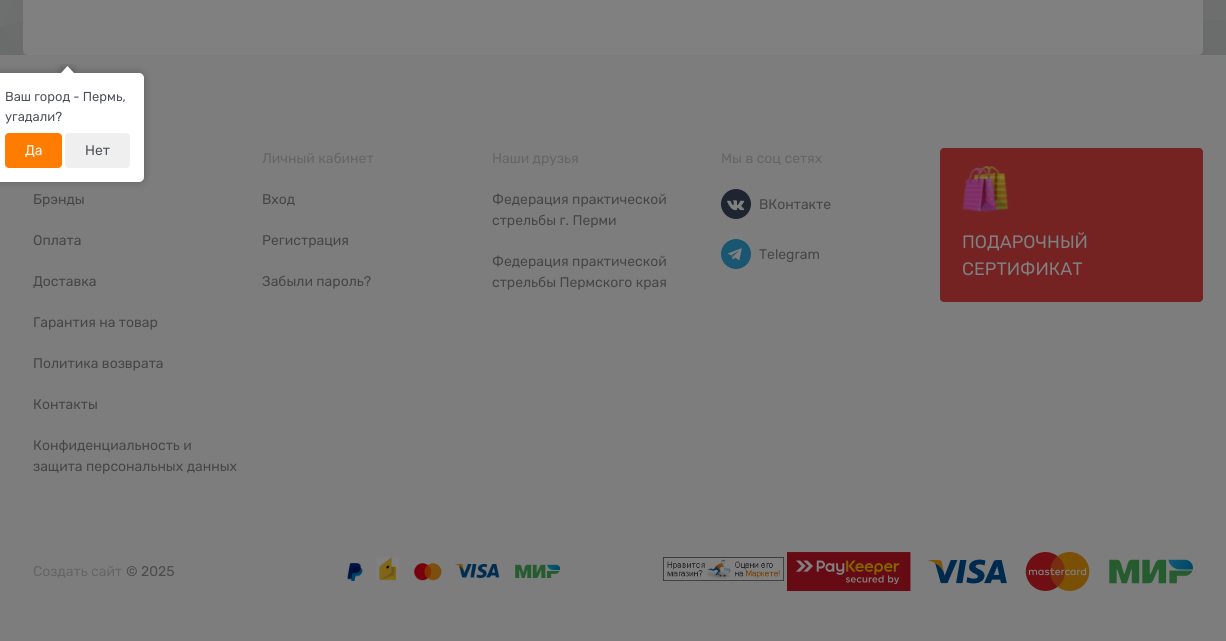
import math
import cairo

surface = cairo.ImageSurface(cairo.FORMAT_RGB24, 1226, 641)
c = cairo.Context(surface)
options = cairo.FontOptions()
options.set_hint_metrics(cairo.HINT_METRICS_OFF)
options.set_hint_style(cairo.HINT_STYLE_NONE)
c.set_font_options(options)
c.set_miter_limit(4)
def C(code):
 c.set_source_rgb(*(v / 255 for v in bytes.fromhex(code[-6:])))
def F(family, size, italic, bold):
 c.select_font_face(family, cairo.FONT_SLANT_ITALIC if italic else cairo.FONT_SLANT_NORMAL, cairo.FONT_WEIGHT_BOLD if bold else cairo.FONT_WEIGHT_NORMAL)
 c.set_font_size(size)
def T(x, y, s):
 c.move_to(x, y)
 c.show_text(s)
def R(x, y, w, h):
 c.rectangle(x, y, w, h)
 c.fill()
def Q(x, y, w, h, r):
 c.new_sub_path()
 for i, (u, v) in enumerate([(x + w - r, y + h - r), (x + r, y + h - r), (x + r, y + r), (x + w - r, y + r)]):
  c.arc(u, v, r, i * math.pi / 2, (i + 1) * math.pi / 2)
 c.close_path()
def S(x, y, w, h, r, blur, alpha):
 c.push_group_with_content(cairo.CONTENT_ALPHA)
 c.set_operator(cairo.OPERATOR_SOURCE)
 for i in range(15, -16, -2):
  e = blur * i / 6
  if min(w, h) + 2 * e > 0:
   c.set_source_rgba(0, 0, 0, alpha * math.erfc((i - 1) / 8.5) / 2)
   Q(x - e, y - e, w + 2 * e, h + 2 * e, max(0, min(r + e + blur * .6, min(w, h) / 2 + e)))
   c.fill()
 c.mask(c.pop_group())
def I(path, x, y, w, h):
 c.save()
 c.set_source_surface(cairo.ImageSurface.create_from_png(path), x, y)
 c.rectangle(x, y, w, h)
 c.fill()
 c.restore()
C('ffffff')
c.paint()
I('1.png',0,0,1226,55)
C('7d7d7d')
R(0,55,1226,586)
C('000000')
S(-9,73,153,109,5,4.5,.25)
C('ffffff')
Q(-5,73,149,109,5)
c.fill()
C('808080')
c.new_path()
c.move_to(23,-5)
c.line_to(1203,-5)
c.line_to(1203,50)
c.curve_to(1203,53,1201,55,1198,55)
c.line_to(28,55)
c.curve_to(25,55,23,53,23,50)
c.close_path()
c.fill()
c.save()
c.rectangle(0,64,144,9)
c.clip()
C('000000')
S(62,68,10,10,0,4.5,.25)
c.restore()
c.save()
c.rectangle(0,64,144,9)
c.clip()
C('ffffff')
c.new_path()
c.move_to(67.5,66)
c.line_to(74.5,73.5)
c.line_to(67.5,80.5)
c.line_to(60.5,73.5)
c.close_path()
c.fill()
c.restore()
F('Rubik',13,0,0)
C('4b4f58')
T(5,101,'Ваш город - Пермь,')
T(5,121,'угадали?')
C('fe7d00')
Q(5,133,57,35,4)
c.fill()
F('Rubik',14,0,0)
C('ffffff')
T(25,155,'Да')
C('efefef')
Q(65,133,65,35,4)
c.fill()
C('4b4f58')
T(85,155,'Нет')
C('454548')
T(33,204,'Брэнды')
T(33,245,'Оплата')
T(33,286,'Доставка')
T(33,327,'Гарантия на товар')
T(33,368,'Политика возврата')
T(33,409,'Контакты')
T(33,450,'Конфиденциальность и')
T(33,471,'защита персональных данных')
C('646466')
T(262,163,'Личный кабинет')
C('454548')
T(262,204,'Вход')
T(262,245,'Регистрация')
T(262,286,'Забыли пароль?')
C('646466')
T(492,163,'Наши друзья')
C('454548')
T(492,204,'Федерация практической')
T(492,225,'стрельбы г. Перми')
T(492,266,'Федерация практической')
T(492,287,'стрельбы Пермского края')
C('646466')
T(721,163,'Мы в соц сетях')
C('1e2530')
c.new_path()
c.arc(736,204,15,0,2 * math.pi)
c.fill()
I('2.png',727,200,18,11)
C('454548')
T(759,209,'ВКонтакте')
C('1b5671')
c.new_path()
c.arc(736,254,15,0,2 * math.pi)
c.fill()
I('3.png',728,248,14,13)
C('454548')
T(759,259,'Telegram')
C('742222')
Q(940,148,263,154,4)
c.fill()
I('4.png',962,166,47,46)
F('Rubik',18,0,0)
C('808080')
T(962,248,'ПОДАРОЧНЫЙ')
T(962,275,'СЕРТИФИКАТ')
F('Rubik',14,0,0)
C('646466')
T(33,576,'Создать сайт')
C('4b4a4a')
T(126,576,'© 2025')
I('5.png',347,557,213,24)
I('6.png',663,557,121,24)
I('7.png',787,552,406,39)
surface.write_to_png('o.png')
